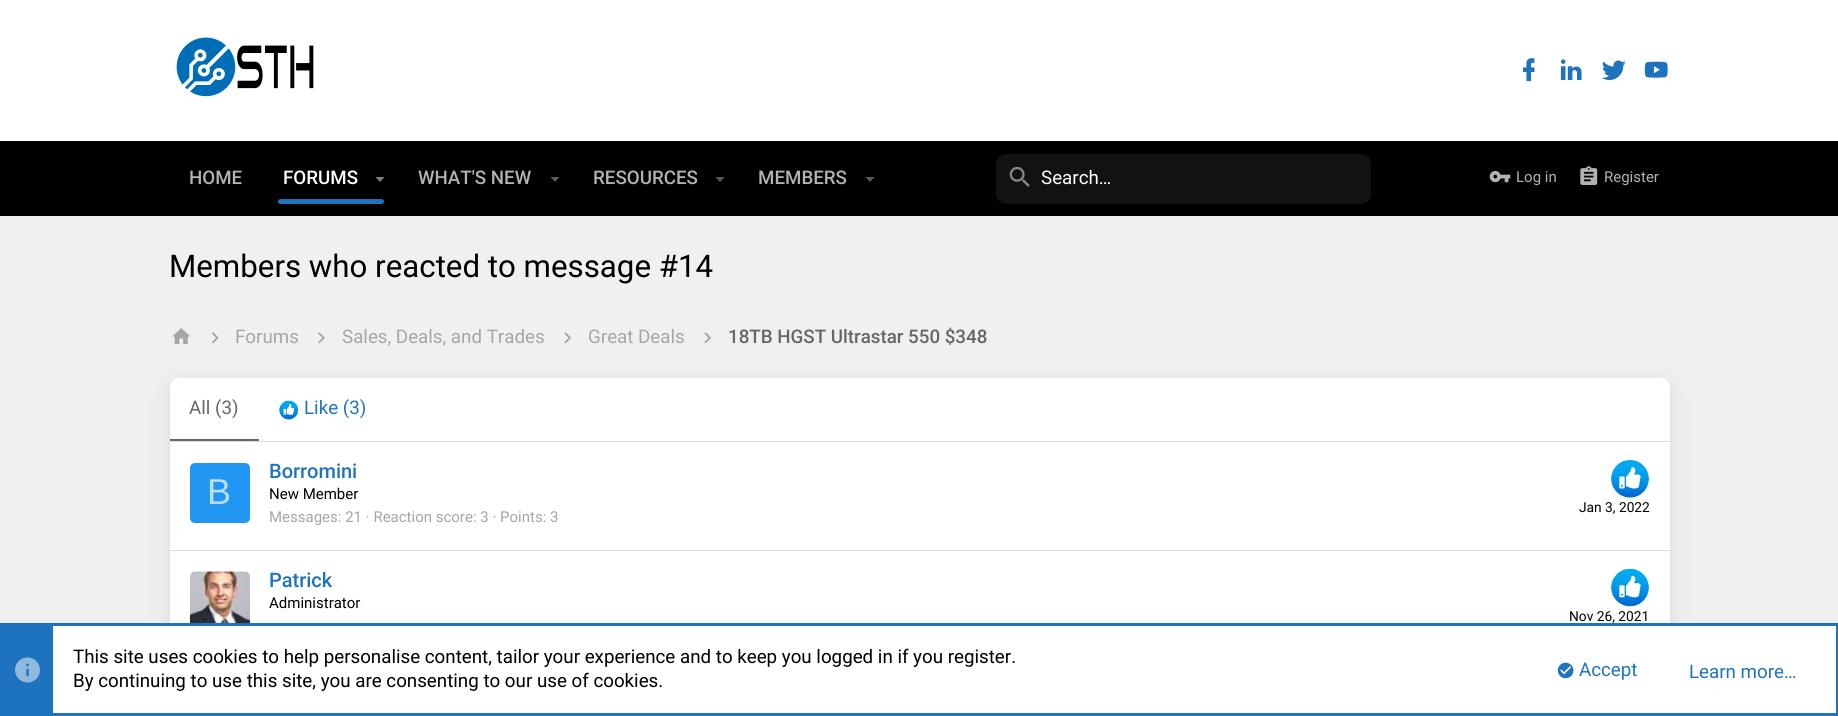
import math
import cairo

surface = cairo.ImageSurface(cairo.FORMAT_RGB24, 1838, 716)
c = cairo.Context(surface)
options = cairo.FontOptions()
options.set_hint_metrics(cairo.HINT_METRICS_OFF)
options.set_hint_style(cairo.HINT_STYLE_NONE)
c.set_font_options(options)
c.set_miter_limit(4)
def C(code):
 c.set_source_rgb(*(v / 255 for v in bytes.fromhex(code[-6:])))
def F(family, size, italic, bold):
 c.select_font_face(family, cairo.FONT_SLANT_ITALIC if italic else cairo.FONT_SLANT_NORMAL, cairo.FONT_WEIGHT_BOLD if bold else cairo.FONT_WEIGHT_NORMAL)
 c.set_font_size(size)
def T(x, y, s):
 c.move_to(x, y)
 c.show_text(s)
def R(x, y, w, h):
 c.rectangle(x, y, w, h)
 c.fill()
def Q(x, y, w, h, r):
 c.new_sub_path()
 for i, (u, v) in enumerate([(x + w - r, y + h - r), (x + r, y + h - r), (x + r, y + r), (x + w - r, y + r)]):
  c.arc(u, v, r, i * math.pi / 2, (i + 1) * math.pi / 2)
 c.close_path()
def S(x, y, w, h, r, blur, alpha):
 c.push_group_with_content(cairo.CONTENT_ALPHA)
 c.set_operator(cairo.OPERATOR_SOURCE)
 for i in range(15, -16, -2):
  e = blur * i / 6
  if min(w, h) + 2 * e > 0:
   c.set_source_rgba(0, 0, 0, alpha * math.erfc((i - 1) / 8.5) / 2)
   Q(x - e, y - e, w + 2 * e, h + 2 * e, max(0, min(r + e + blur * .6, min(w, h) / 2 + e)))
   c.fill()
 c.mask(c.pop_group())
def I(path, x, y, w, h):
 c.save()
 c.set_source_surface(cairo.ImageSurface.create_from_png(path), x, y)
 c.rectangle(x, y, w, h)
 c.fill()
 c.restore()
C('f0f0f0')
c.paint()
C('ffffff')
R(0,0,1838,141)
I('1.png',176,37,138,60)
I('2.png',1523,58,12,24)
I('3.png',1560,59,22,21)
I('4.png',1602,60,24,20)
I('5.png',1644,61,24,17)
C('000000')
R(0,141,1838,75)
F('Roboto Medium',18.75,0,0)
C('b3b3b3')
T(189,184,'HOME')
C('ffffff')
T(283,184,'FORUMS')
C('808080')
c.new_path()
c.move_to(375.5,177)
c.line_to(380,182)
c.line_to(384.5,177)
c.close_path()
c.fill()
C('1e73be')
Q(278,199,106,5,2.5)
c.fill()
C('b3b3b3')
T(418,184,'WHAT\'S NEW')
C('5a5a5a')
c.new_path()
c.move_to(550.5,177)
c.line_to(555,182)
c.line_to(559.5,177)
c.close_path()
c.fill()
C('b3b3b3')
T(593,184,'RESOURCES')
C('5a5a5a')
c.new_path()
c.move_to(715.5,177)
c.line_to(720,182)
c.line_to(724.5,177)
c.close_path()
c.fill()
C('b3b3b3')
T(758,184,'MEMBERS')
C('5a5a5a')
c.new_path()
c.move_to(865.5,177)
c.line_to(870,182)
c.line_to(874.5,177)
c.close_path()
c.fill()
C('121212')
Q(996,154,375,50,10)
c.fill()
I('6.png',1009,166,21,21)
F('Roboto',18.75,0,0)
C('ffffff')
T(1041,184,'Search…')
I('7.png',1489,171,22,12)
F('Roboto',15,0,0)
C('b3b3b3')
T(1516,182,'Log in')
I('8.png',1580,166,18,19)
T(1604,182,'Register')
F('Roboto',31.25,0,0)
C('000000')
T(169,277,'Members who reacted to message #14')
I('9.png',172,328,19,17)
I('10.png',212,332,7,12)
F('Roboto',18.75,0,0)
C('a6a6a6')
T(235,343,'Forums')
I('11.png',318,332,7,12)
T(342,343,'Sales, Deals, and Trades')
I('12.png',564,332,8,12)
T(588,343,'Great Deals')
I('12.png',704,332,8,12)
F('Roboto Medium',18.75,0,0)
C('666666')
T(728,343,'18TB HGST Ultrastar 550 $348')
C('717171')
S(170,383,1500,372,10,9.5,.2)
C('ffffff')
Q(170,378,1500,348,10)
c.fill()
c.new_path()
c.move_to(179,378)
c.line_to(1661,378)
c.curve_to(1666,378,1670,382,1670,387)
c.line_to(1670,443)
c.line_to(170,443)
c.line_to(170,387)
c.curve_to(170,382,174,378,179,378)
c.close_path()
c.fill()
C('dcdcdc')
R(170,441,1500,1)
C('666666')
R(170,439,89,2)
F('Roboto',18.75,0,0)
T(189,414,'All (3)')
I('13.png',279,400,19,20)
C('1e73be')
T(304,414,'Like (3)')
C('2196f3')
Q(190,463,60,60,5)
c.fill()
F('Liberation Sans',36,0,0)
C('bbdefb')
T(207,504,'B')
F('Roboto Medium',20,0,0)
C('1e73be')
T(269,478,'Borromini')
F('Roboto',15,0,0)
C('000000')
T(269,499,'New Member')
I('14.png',1611,459,38,39)
F('Roboto',13.75,0,0)
T(1579,512,'Jan 3, 2022')
F('Roboto',15,0,0)
C('a6a6a6')
T(269,522,'Messages: 21 · Reaction score: 3 · Points: 3')
C('dcdcdc')
R(170,550,1500,1)
I('15.png',190,571,60,52)
F('Roboto Medium',20,0,0)
C('1e73be')
T(269,587,'Patrick')
F('Roboto',15,0,0)
C('000000')
T(269,608,'Administrator')
I('16.png',1611,568,38,39)
F('Roboto',13.75,0,0)
T(1569,621,'Nov 26, 2021')
C('ffffff')
R(53,626,1783,87)
c.rectangle(1.5,624.5,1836,90)
C('1e73be')
c.set_line_width(3)
c.stroke()
R(3,626,50,87)
I('17.png',15,657,25,26)
F('Roboto',18.75,0,0)
C('000000')
T(73,663,'This site uses cookies to help personalise content, tailor your experience and to keep you logged in if you register.')
T(73,687,'By continuing to use this site, you are consenting to our use of cookies.')
I('18.png',1557,662,17,17)
C('1e73be')
T(1579,676,'Accept')
T(1689,678,'Learn more…')
surface.write_to_png('o.png')
